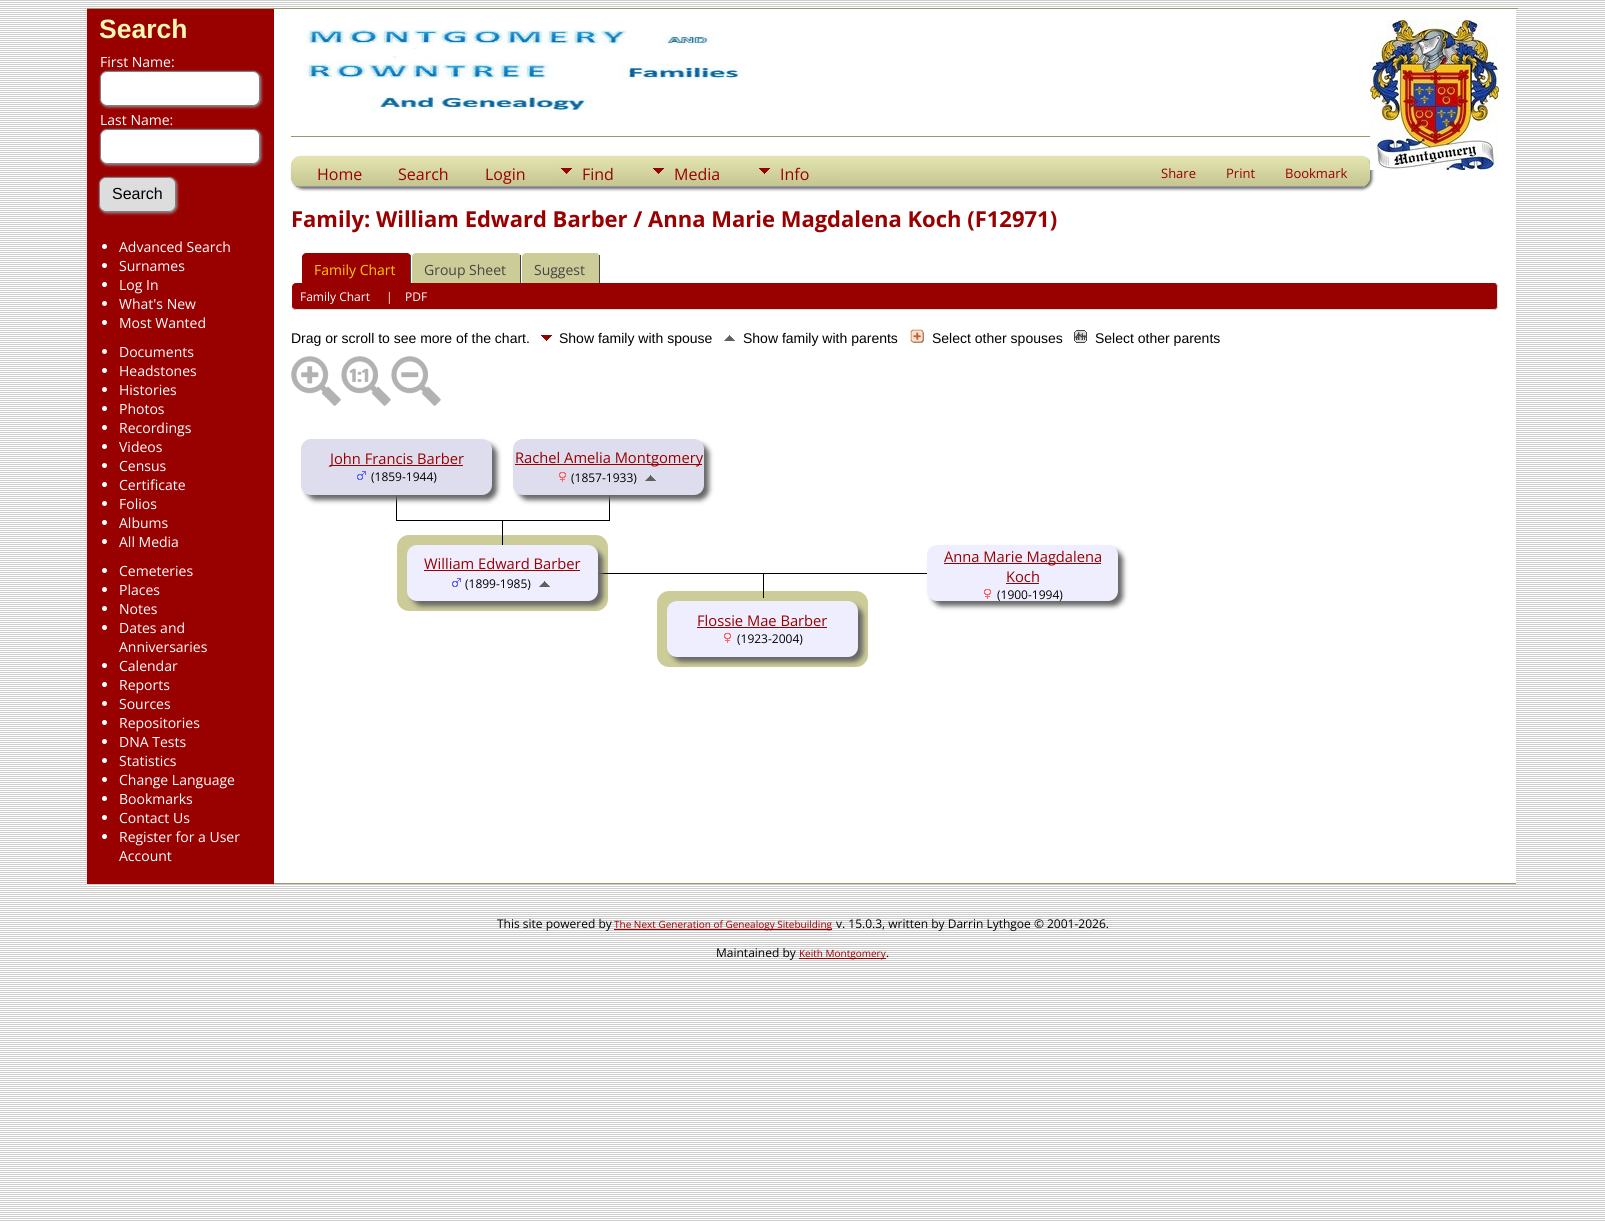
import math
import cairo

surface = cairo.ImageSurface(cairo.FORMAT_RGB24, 1605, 1221)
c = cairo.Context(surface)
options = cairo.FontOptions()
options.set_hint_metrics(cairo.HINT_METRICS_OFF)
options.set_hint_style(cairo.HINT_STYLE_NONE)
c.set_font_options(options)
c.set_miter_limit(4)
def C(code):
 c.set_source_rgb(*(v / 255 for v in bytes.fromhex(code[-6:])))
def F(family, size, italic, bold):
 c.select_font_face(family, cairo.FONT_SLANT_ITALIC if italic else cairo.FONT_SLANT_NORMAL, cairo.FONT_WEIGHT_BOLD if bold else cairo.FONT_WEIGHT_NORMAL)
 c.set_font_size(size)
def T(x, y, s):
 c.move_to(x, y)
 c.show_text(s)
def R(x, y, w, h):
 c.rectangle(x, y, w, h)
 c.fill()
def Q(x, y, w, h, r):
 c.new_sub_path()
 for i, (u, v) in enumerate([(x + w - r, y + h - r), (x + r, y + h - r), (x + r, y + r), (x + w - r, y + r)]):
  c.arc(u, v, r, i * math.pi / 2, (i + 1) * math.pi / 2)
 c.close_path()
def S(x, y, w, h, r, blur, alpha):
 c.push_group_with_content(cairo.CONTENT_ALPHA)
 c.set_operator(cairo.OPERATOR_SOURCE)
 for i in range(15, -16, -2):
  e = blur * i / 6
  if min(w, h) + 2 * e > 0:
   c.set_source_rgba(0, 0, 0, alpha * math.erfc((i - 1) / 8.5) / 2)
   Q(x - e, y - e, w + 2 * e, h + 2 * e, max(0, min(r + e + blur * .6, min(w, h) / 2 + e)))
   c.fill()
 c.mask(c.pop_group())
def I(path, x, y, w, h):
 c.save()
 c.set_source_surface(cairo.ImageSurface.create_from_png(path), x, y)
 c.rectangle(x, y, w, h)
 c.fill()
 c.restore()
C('ffffff')
c.paint()
I('1.png',0,0,1605,1221)
C('999966')
R(87,8,1431,1)
C('990000')
R(87,9,187,875)
F('Liberation Sans',26.5,0,1)
C('f8f8b2')
T(99,38,'Search')
F('Open Sans',14,0,0)
C('ffffff')
T(100,67,'First Name:')
C('999999')
S(101,72,160,35,7,1.5,1)
C('ffffff')
Q(100.5,71.5,159,34,6.5)
c.fill_preserve()
C('808080')
c.set_line_width(1)
c.stroke()
C('ffffff')
T(100,125,'Last Name:')
C('999999')
S(101,130,160,35,7,1.5,1)
C('ffffff')
Q(100.5,129.5,159,34,6.5)
c.fill_preserve()
C('808080')
c.stroke()
C('999999')
S(100,178,77,35,7,1.5,1)
C('dddddd')
Q(99.5,177.5,76,34,6.5)
c.fill_preserve()
C('808080')
c.stroke()
F('Liberation Sans',16,0,0)
C('000000')
T(112,199,'Search')
C('ffffff')
c.new_path()
c.arc(104.5,246.5,2.5,0,2 * math.pi)
c.fill()
F('Open Sans',14,0,0)
T(119,252,'Advanced Search')
c.new_path()
c.arc(104.5,265.5,2.5,0,2 * math.pi)
c.fill()
T(119,271,'Surnames')
c.new_path()
c.arc(104.5,284.5,2.5,0,2 * math.pi)
c.fill()
T(119,290,'Log In')
c.new_path()
c.arc(104.5,303.5,2.5,0,2 * math.pi)
c.fill()
T(119,309,'What\'s New')
c.new_path()
c.arc(104.5,322.5,2.5,0,2 * math.pi)
c.fill()
T(119,328,'Most Wanted')
c.new_path()
c.arc(104.5,351.5,2.5,0,2 * math.pi)
c.fill()
T(119,357,'Documents')
c.new_path()
c.arc(104.5,370.5,2.5,0,2 * math.pi)
c.fill()
T(119,376,'Headstones')
c.new_path()
c.arc(104.5,389.5,2.5,0,2 * math.pi)
c.fill()
T(119,395,'Histories')
c.new_path()
c.arc(104.5,408.5,2.5,0,2 * math.pi)
c.fill()
T(119,414,'Photos')
c.new_path()
c.arc(104.5,427.5,2.5,0,2 * math.pi)
c.fill()
T(119,433,'Recordings')
c.new_path()
c.arc(104.5,446.5,2.5,0,2 * math.pi)
c.fill()
T(119,452,'Videos')
c.new_path()
c.arc(104.5,465.5,2.5,0,2 * math.pi)
c.fill()
T(119,471,'Census')
c.new_path()
c.arc(104.5,484.5,2.5,0,2 * math.pi)
c.fill()
T(119,490,'Certificate')
c.new_path()
c.arc(104.5,503.5,2.5,0,2 * math.pi)
c.fill()
T(119,509,'Folios')
c.new_path()
c.arc(104.5,522.5,2.5,0,2 * math.pi)
c.fill()
T(119,528,'Albums')
c.new_path()
c.arc(104.5,541.5,2.5,0,2 * math.pi)
c.fill()
T(119,547,'All Media')
c.new_path()
c.arc(104.5,570.5,2.5,0,2 * math.pi)
c.fill()
T(119,576,'Cemeteries')
c.new_path()
c.arc(104.5,589.5,2.5,0,2 * math.pi)
c.fill()
T(119,595,'Places')
c.new_path()
c.arc(104.5,608.5,2.5,0,2 * math.pi)
c.fill()
T(119,614,'Notes')
c.new_path()
c.arc(104.5,627.5,2.5,0,2 * math.pi)
c.fill()
T(119,633,'Dates and')
T(119,652,'Anniversaries')
c.new_path()
c.arc(104.5,665.5,2.5,0,2 * math.pi)
c.fill()
T(119,671,'Calendar')
c.new_path()
c.arc(104.5,684.5,2.5,0,2 * math.pi)
c.fill()
T(119,690,'Reports')
c.new_path()
c.arc(104.5,703.5,2.5,0,2 * math.pi)
c.fill()
T(119,709,'Sources')
c.new_path()
c.arc(104.5,722.5,2.5,0,2 * math.pi)
c.fill()
T(119,728,'Repositories')
c.new_path()
c.arc(104.5,741.5,2.5,0,2 * math.pi)
c.fill()
T(119,747,'DNA Tests')
c.new_path()
c.arc(104.5,760.5,2.5,0,2 * math.pi)
c.fill()
T(119,766,'Statistics')
c.new_path()
c.arc(104.5,779.5,2.5,0,2 * math.pi)
c.fill()
T(119,785,'Change Language')
c.new_path()
c.arc(104.5,798.5,2.5,0,2 * math.pi)
c.fill()
T(119,804,'Bookmarks')
c.new_path()
c.arc(104.5,817.5,2.5,0,2 * math.pi)
c.fill()
T(119,823,'Contact Us')
c.new_path()
c.arc(104.5,836.5,2.5,0,2 * math.pi)
c.fill()
T(119,842,'Register for a User')
T(119,861,'Account')
R(274,10,1242,873)
C('999966')
R(274,883,1242,1)
I('2.png',305,29,438,83)
C('666666')
S(293,158,1079,31,10,1.5,1)
I('3.png',1370,20,129,150)
C('999966')
R(291,136,1079,1)
C('cccc99')
Q(291,156,1079,31,10)
c.fill()
c.save()
Q(291,156,1079,31,10)
c.clip()
gradient = cairo.LinearGradient(831,156,831,186)
gradient.add_color_stop_rgba(0,0.898,0.898,0.694,1)
gradient.add_color_stop_rgba(1,0.773,0.773,0.569,1)
c.set_source(gradient)
c.new_path()
c.move_to(301,156)
c.line_to(1360,156)
c.curve_to(1365.5,156,1370,160.5,1370,166)
c.line_to(1370,186)
c.line_to(291,186)
c.line_to(291,166)
c.curve_to(291,160.5,295.5,156,301,156)
c.close_path()
c.fill()
c.restore()
C('999999')
R(296,186,1069,1)
F('Open Sans',16,0,0)
C('990000')
T(317,180,'Home')
T(398,180,'Search')
T(485,180,'Login')
I('4.png',552,156,92,30)
T(582,180,'Find')
I('5.png',644,156,106,30)
T(674,180,'Media')
I('6.png',750,156,90,30)
T(780,180,'Info')
F('Open Sans',13,0,0)
T(1161,178,'Share')
T(1226,178,'Print')
T(1285,178,'Bookmark')
F('Open Sans',22,0,1)
T(291,227,'Family: William Edward Barber / Anna Marie Magdalena Koch (F12971)')
c.new_path()
c.move_to(306,253)
c.line_to(407,253)
c.curve_to(409,253,411,255,411,257)
c.line_to(411,283)
c.line_to(302,283)
c.line_to(302,257)
c.curve_to(302,255,304,253,306,253)
c.close_path()
c.fill()
C('444444')
R(410,255,1,28)
F('Open Sans',14,0,0)
C('ffcc00')
T(314,275,'Family Chart')
C('cccc99')
c.new_path()
c.move_to(416,253)
c.line_to(517,253)
c.curve_to(519,253,521,255,521,257)
c.line_to(521,283)
c.line_to(412,283)
c.line_to(412,257)
c.curve_to(412,255,414,253,416,253)
c.close_path()
c.fill()
C('444444')
R(520,255,1,28)
T(424,275,'Group Sheet')
C('cccc99')
c.new_path()
c.move_to(526,253)
c.line_to(596,253)
c.curve_to(598,253,600,255,600,257)
c.line_to(600,283)
c.line_to(522,283)
c.line_to(522,257)
c.curve_to(522,255,524,253,526,253)
c.close_path()
c.fill()
C('444444')
R(599,255,1,28)
T(534,275,'Suggest')
C('990000')
Q(292,283,1206,27,4)
c.fill()
C('dddddd')
c.set_fill_rule(cairo.FILL_RULE_EVEN_ODD)
c.new_path()
c.move_to(296,283)
c.line_to(1494,283)
c.curve_to(1496,283,1498,285,1498,287)
c.line_to(1498,306)
c.curve_to(1498,308,1496,310,1494,310)
c.line_to(296,310)
c.curve_to(294,310,292,308,292,306)
c.line_to(292,287)
c.curve_to(292,285,294,283,296,283)
c.close_path()
c.move_to(296,283)
c.line_to(1494,283)
c.curve_to(1496,283,1497,285,1497,287)
c.line_to(1497,306)
c.curve_to(1497,308,1496,309,1494,309)
c.line_to(296,309)
c.curve_to(294,309,292,308,292,306)
c.line_to(292,287)
c.curve_to(292,285,294,283,296,283)
c.close_path()
c.fill()
F('Open Sans',12,0,0)
C('ffffff')
T(300,301,'Family Chart')
T(386,301,'|')
T(405,301,'PDF')
F('Liberation Sans',14,0,0)
C('000000')
T(291,343,'Drag or scroll to see more of the chart.')
I('7.png',541,335,11,6)
T(559,343,'Show family with spouse')
I('8.png',724,335,11,6)
T(743,343,'Show family with parents')
I('9.png',910,329,14,14)
T(932,343,'Select other spouses')
I('10.png',1074,330,13,13)
T(1095,343,'Select other parents')
I('11.png',291,356,50,50)
I('12.png',341,356,50,50)
I('13.png',391,356,50,50)
R(609,495,1,26)
R(396,520,214,1)
R(396,495,1,26)
C('666666')
S(306,444,191,56,10,2.5,1)
C('ddddee')
Q(301,439,191,56,10)
c.fill()
C('990000')
R(330,465,133,1)
F('Open Sans',14.7,0,0)
T(330,464,'John Francis Barber')
I('14.png',357,471,9,9)
F('Open Sans',12,0,0)
C('000000')
T(371,481,'(1859-1944)')
C('666666')
S(518,444,191,56,10,2.5,1)
C('ddddee')
Q(513,439,191,56,10)
c.fill()
C('990000')
R(515,464,187,1)
F('Open Sans',14.7,0,0)
T(515,463,'Rachel Amelia Montgomery')
I('15.png',559,472,7,10)
F('Open Sans',12,0,0)
C('000000')
T(571,482,'(1857-1933)')
I('16.png',645,475,11,6)
C('cccc99')
Q(397,535,211,76,12)
c.fill()
C('000000')
R(502,520,1,25)
R(598,573,330,1)
C('666666')
S(932,550,191,56,10,2.5,1)
C('eeeeff')
Q(927,545,191,56,10)
c.fill()
C('990000')
R(944,563,157,1)
F('Open Sans',14.7,0,0)
T(944,562,'Anna Marie Magdalena')
T(1006,582,'Koch')
R(1006,583,33,1)
I('17.png',984,589,7,10)
F('Open Sans',12,0,0)
C('000000')
T(997,599,'(1900-1994)')
C('666666')
S(412,550,191,56,10,2.5,1)
C('eeeeff')
Q(407,545,191,56,10)
c.fill()
F('Open Sans',14.7,0,0)
C('990000')
T(424,569,'William Edward Barber')
R(424,570,156,1)
I('18.png',452,578,9,9)
F('Open Sans',12,0,0)
C('000000')
T(465,588,'(1899-1985)')
I('19.png',539,581,11,6)
C('cccc99')
Q(657,591,211,76,12)
c.fill()
C('000000')
R(763,573,1,25)
C('666666')
S(672,606,191,56,10,2.5,1)
C('eeeeff')
Q(667,601,191,56,10)
c.fill()
F('Open Sans',14.7,0,0)
C('990000')
T(697,626,'Flossie Mae Barber')
R(697,627,130,1)
I('17.png',724,633,7,10)
F('Open Sans',12,0,0)
C('000000')
T(737,643,'(1923-2004)')
T(497,928,'This site powered by')
C('990000')
R(614,929,218,1)
F('Open Sans',10,0,0)
T(614,928,'The Next Generation of Genealogy Sitebuilding')
F('Open Sans',12,0,0)
C('000000')
T(836,928,'v. 15.0.3, written by Darrin Lythgoe © 2001-2026.')
T(716,957,'Maintained by')
C('990000')
R(799,958,87,1)
F('Open Sans',10,0,0)
T(799,957,'Keith Montgomery')
F('Open Sans',12,0,0)
C('000000')
T(886,957,'.')
surface.write_to_png('o.png')
